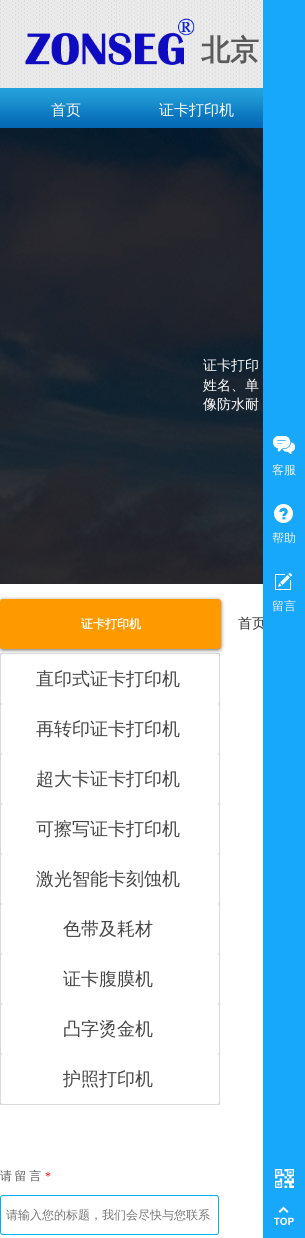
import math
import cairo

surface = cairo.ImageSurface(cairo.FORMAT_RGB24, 305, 1238)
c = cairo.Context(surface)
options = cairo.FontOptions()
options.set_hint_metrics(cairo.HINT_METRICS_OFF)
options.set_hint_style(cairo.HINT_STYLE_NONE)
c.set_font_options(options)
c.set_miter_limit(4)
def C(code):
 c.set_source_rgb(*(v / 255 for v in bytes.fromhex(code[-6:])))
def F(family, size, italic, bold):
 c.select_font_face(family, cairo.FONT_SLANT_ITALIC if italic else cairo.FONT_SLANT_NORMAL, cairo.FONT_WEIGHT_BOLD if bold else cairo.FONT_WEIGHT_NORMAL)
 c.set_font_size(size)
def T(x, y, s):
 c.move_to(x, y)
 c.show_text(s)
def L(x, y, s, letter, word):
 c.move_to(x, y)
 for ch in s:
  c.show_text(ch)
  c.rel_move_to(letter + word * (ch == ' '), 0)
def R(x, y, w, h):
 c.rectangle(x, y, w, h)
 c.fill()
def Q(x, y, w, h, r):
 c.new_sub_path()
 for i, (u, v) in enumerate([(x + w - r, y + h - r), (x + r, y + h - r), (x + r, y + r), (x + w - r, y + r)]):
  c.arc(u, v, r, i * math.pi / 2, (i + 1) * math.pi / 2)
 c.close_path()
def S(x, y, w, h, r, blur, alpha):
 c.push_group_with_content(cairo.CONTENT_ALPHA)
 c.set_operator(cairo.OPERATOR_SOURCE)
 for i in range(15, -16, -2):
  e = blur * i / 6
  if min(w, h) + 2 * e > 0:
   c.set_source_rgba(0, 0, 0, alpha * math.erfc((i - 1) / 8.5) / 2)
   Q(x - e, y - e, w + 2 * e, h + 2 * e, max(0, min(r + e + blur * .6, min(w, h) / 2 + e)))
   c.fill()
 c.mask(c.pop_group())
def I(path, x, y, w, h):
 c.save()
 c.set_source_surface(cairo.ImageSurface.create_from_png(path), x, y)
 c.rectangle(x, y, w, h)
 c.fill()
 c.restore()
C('ffffff')
c.paint()
I('1.png',0,0,263,88)
I('2.png',25,18,170,47)
F('WenQuanYi Zen Hei',29,0,1)
C('5a5a5a')
T(201,60,'北京')
I('3.png',0,88,263,40)
F('WenQuanYi Zen Hei Medium',15,0,0)
C('ffffff')
T(51,115,'首页')
T(159,115,'证卡打印机')
I('4.png',0,128,263,456)
F('WenQuanYi Zen Hei Medium',14,0,0)
T(203,370,'证卡打印')
T(203,390,'姓名、单')
T(203,409,'像防水耐')
C('000000')
S(0,600,221,50,3,2,.6)
C('ff9900')
Q(0,599,221,50,3)
c.fill()
F('WenQuanYi Zen Hei',12,0,1)
C('ffffff')
T(81,628,'证卡打印机')
F('WenQuanYi Zen Hei Medium',14,0,0)
C('333333')
T(238,628,'首页')
C('d9d9d9')
Q(.5,653.5,219,451,.5)
c.fill_preserve()
c.set_line_width(1)
c.stroke()
C('ffffff')
Q(1,654,218,50,2)
c.fill()
F('WenQuanYi Zen Hei Medium',18,0,0)
C('434343')
T(36,685,'直印式证卡打印机')
C('ffffff')
Q(1,704,218,50,2)
c.fill()
C('434343')
T(36,735,'再转印证卡打印机')
C('ffffff')
Q(1,754,218,50,2)
c.fill()
C('434343')
T(36,785,'超大卡证卡打印机')
C('ffffff')
Q(1,804,218,50,2)
c.fill()
C('434343')
T(36,835,'可擦写证卡打印机')
C('ffffff')
Q(1,854,218,50,2)
c.fill()
C('434343')
T(36,885,'激光智能卡刻蚀机')
C('ffffff')
Q(1,904,218,50,2)
c.fill()
C('434343')
T(63,935,'色带及耗材')
C('ffffff')
Q(1,954,218,50,2)
c.fill()
C('434343')
T(63,985,'证卡腹膜机')
C('ffffff')
Q(1,1004,218,50,2)
c.fill()
C('434343')
T(63,1035,'凸字烫金机')
C('ffffff')
Q(1,1054,218,50,2)
c.fill()
C('434343')
T(63,1085,'护照打印机')
F('WenQuanYi Zen Hei Medium',12,0,0)
C('5a5a5a')
L(0,1180,'请 留 言',0,-1)
F('Liberation Serif',12,0,0)
C('ff0000')
T(45,1180,'*')
Q(.5,1195.5,218,39,2.5)
C('00aff1')
c.stroke()
F('WenQuanYi Zen Hei Medium',12,0,0)
C('757575')
T(6,1219,'请输入您的标题，我们会尽快与您联系')
C('17a8fb')
R(263,0,42,1238)
I('5.png',273,436,22,18)
C('efefef')
T(272,474,'客服')
I('6.png',274,504,19,19)
T(272,542,'帮助')
I('7.png',275,573,17,17)
T(272,610,'留言')
I('8.png',275,1169,19,19)
I('9.png',274,1206,20,19)
surface.write_to_png('o.png')
